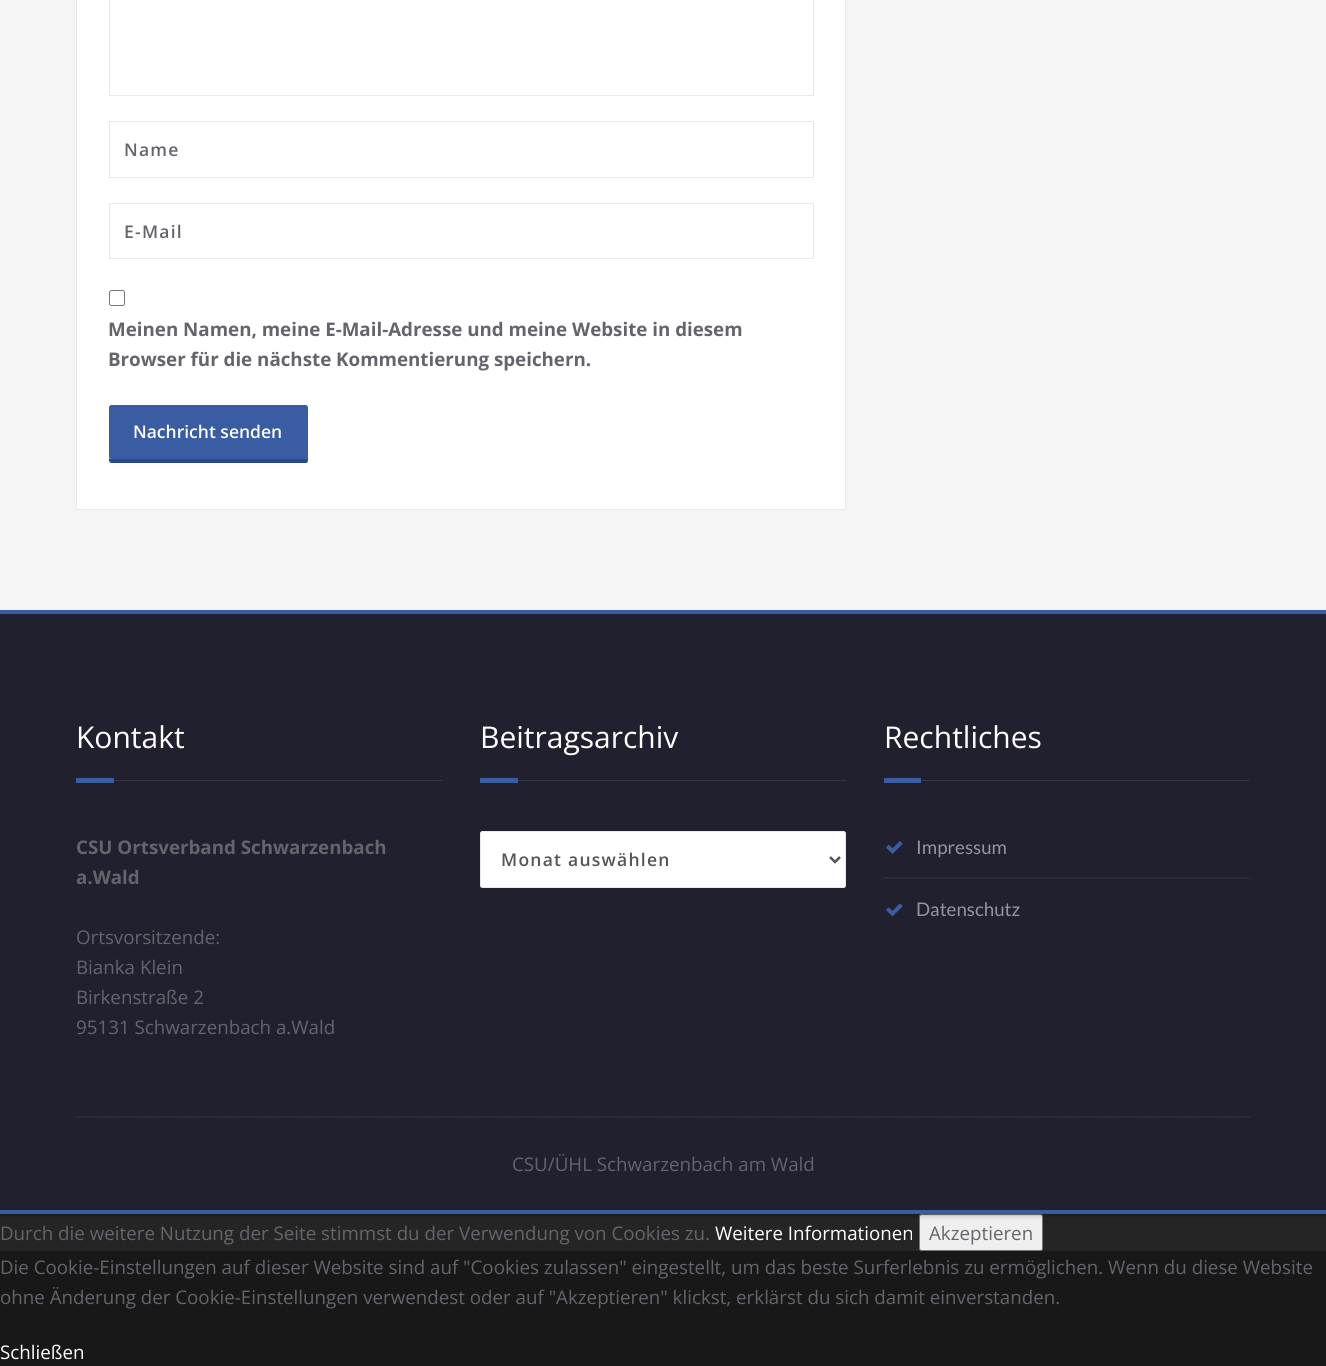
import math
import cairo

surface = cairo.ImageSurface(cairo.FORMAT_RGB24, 1326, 1366)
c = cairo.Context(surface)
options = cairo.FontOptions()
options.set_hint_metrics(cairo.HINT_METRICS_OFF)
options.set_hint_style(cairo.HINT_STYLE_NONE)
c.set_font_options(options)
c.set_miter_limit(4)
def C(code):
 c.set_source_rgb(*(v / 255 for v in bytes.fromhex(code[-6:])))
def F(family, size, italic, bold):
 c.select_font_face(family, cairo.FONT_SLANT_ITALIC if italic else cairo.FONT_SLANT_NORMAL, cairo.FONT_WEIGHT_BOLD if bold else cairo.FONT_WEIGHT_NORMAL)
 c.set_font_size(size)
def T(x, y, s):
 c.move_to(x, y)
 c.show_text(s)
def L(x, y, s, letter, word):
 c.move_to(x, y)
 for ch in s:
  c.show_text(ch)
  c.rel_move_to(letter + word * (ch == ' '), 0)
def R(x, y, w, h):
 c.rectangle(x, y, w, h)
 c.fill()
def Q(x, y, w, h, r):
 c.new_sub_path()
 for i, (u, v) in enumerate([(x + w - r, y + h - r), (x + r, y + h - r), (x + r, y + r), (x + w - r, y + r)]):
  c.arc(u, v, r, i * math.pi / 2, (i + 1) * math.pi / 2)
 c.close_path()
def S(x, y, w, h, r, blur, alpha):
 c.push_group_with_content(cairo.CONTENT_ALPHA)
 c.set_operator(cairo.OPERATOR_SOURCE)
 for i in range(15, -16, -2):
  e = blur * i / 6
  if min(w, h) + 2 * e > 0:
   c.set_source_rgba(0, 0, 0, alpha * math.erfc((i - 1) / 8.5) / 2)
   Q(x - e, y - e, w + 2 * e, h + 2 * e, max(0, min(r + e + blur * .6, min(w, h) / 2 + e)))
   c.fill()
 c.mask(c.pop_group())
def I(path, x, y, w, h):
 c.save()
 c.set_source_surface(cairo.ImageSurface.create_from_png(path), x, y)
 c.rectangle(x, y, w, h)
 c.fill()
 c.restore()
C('252525')
c.paint()
C('efefef')
Q(919.5,1214.5,123,36,2)
c.fill_preserve()
C('767676')
c.set_line_width(1)
c.stroke()
C('000000')
S(0,-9,1326,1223,0,3,.5)
C('f5f5f5')
R(0,0,1326,610)
C('ffffff')
c.rectangle(76.5,-.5,769,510)
c.fill_preserve()
C('e9e9e9')
c.stroke()
c.rectangle(109.5,-.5,704,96)
c.stroke()
c.rectangle(109.5,121.5,704,56)
c.stroke()
F('Open Sans SemiBold',17.5,0,0)
C('64646d')
L(124,156,'Name',1.25,0)
c.rectangle(109.5,203.5,704,55)
C('e9e9e9')
c.stroke()
C('64646d')
L(124,238,'E-Mail',1.25,0)
Q(109.5,290.5,15,15,2)
C('767676')
c.stroke()
F('Open Sans',18.75,0,1)
C('64646d')
T(108,336,'Meinen Namen, meine E-Mail-Adresse und meine Website in diesem')
T(108,366,'Browser für die nächste Kommentierung speichern.')
C('2a4987')
c.new_path()
c.move_to(109,457)
c.line_to(109,460)
c.curve_to(109,462,110,463,112,463)
c.line_to(306,463)
c.curve_to(307,463,308,462,308,460)
c.line_to(308,412)
c.line_to(308,410)
c.line_to(308,456)
c.curve_to(308,458,306,459,305,459)
c.line_to(111,459)
c.curve_to(110,459,109,458,109,457)
c.close_path()
c.fill()
C('395ca3')
Q(109,405,199,54,2.5)
c.fill()
F('Open Sans SemiBold',17.5,0,0)
C('ffffff')
T(133,438,'Nachricht senden')
C('21202e')
R(0,614,1326,596)
C('395ca3')
R(0,610,1326,4)
R(0,1210,1326,4)
C('363544')
R(114,780,329,1)
F('Open Sans',30,0,0)
C('ffffff')
T(76,748,'Kontakt')
C('395ca3')
R(76,778,38,5)
F('Open Sans',18.75,0,1)
C('64646d')
T(76,854,'CSU Ortsverband Schwarzenbach')
T(76,884,'a.Wald')
F('Open Sans',18.75,0,0)
T(76,944,'Ortsvorsitzende:')
T(76,974,'Bianka Klein')
T(76,1004,'Birkenstraße 2')
T(76,1034,'95131 Schwarzenbach a.Wald')
C('363544')
R(518,780,328,1)
F('Open Sans',30,0,0)
C('ffffff')
T(480,748,'Beitragsarchiv')
C('395ca3')
R(480,778,38,5)
C('ffffff')
Q(480.5,831.5,365,56,2)
c.fill_preserve()
C('e9e9e9')
c.stroke()
c.new_path()
c.move_to(830,857)
c.line_to(835,862)
c.line_to(840,857)
C('555555')
c.set_line_width(2.5)
c.stroke()
F('Open Sans SemiBold',17.5,0,0)
L(501,866,'Monat auswählen',1.25,0)
C('363544')
R(921,780,329,1)
F('Open Sans',30,0,0)
C('ffffff')
T(884,748,'Rechtliches')
C('395ca3')
R(884,778,37,5)
c.new_path()
c.move_to(884,878)
c.line_to(1250,878)
C('403f4e')
c.set_line_width(1.2)
c.set_dash([1.25,1.25])
c.stroke()
I('1.png',886,841,17,13)
F('Lato',18.75,0,0)
C('9595a0')
T(916,854,'Impressum')
I('2.png',886,903,17,14)
T(916,916,'Datenschutz')
c.new_path()
c.move_to(76,1117)
c.line_to(1251,1117)
C('403f4e')
c.stroke()
F('Open Sans',18.75,0,0)
C('64646d')
T(512,1171,'CSU/ÜHL Schwarzenbach am Wald')
T(0,1240,'Durch die weitere Nutzung der Seite stimmst du der Verwendung von Cookies zu.')
C('ffffff')
T(715,1240,'Weitere Informationen')
C('64646d')
T(929,1240,'Akzeptieren')
C('181818')
R(0,1251,1326,115)
C('64646d')
T(0,1274,'Die Cookie-Einstellungen auf dieser Website sind auf "Cookies zulassen" eingestellt, um das beste Surferlebnis zu ermöglichen. Wenn du diese Website')
T(0,1304,'ohne Änderung der Cookie-Einstellungen verwendest oder auf "Akzeptieren" klickst, erklärst du sich damit einverstanden.')
C('ffffff')
T(0,1359,'Schließen')
surface.write_to_png('o.png')
